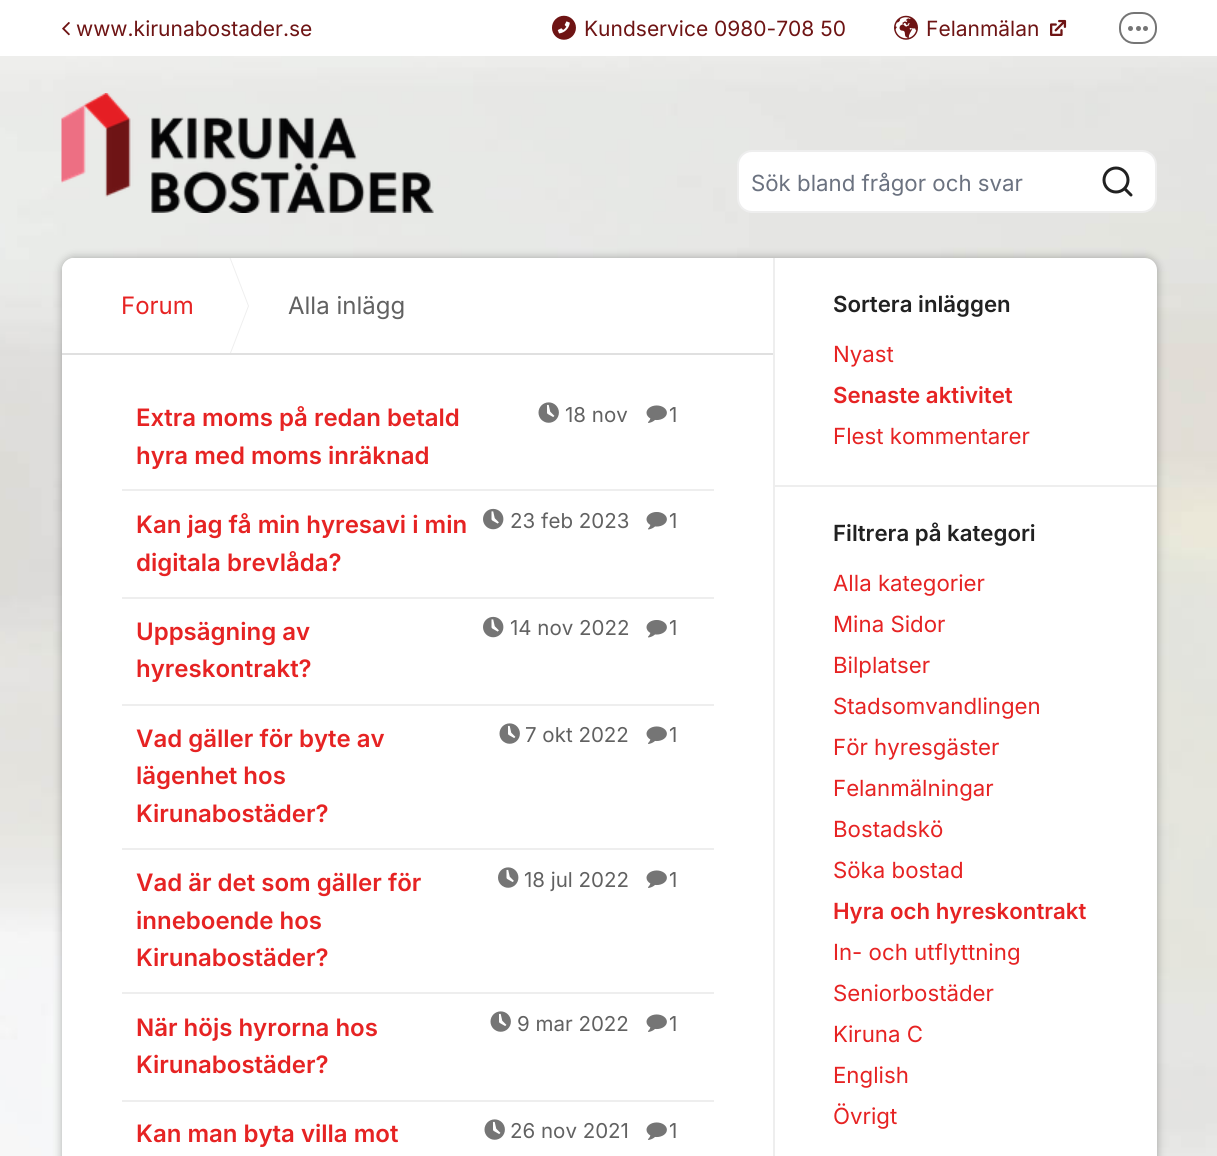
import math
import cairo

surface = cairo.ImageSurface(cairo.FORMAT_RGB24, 1217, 1156)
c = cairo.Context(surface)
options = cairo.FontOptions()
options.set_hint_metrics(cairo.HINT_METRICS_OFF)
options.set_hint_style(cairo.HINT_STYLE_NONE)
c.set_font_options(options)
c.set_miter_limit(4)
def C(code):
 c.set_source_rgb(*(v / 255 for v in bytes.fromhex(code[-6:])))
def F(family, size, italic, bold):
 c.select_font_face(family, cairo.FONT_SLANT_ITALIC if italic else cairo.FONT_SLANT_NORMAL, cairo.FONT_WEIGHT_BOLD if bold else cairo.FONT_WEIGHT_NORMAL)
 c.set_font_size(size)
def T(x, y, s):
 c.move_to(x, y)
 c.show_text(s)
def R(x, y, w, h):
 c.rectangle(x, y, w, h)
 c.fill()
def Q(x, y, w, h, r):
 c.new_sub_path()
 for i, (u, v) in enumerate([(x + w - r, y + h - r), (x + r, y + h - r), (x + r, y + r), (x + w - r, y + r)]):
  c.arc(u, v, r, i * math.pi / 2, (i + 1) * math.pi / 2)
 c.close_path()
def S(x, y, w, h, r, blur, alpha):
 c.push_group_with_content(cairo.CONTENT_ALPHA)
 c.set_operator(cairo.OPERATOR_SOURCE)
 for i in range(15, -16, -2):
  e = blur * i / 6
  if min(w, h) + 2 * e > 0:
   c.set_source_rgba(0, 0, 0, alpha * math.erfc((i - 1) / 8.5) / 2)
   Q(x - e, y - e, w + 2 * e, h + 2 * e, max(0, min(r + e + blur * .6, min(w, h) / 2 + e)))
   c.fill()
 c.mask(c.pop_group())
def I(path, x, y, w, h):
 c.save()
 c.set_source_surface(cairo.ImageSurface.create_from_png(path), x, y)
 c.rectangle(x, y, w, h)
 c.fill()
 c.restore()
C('ffffff')
c.paint()
I('1.png',0,56,1217,1100)
I('2.png',62,22,8,14)
F('Inter',21,0,0)
C('6e1414')
T(76,36,'www.kirunabostader.se')
I('3.png',552,15,24,25)
T(584,36,'Kundservice 0980-708 50')
I('4.png',894,15,24,25)
T(926,36,'Felanmälan')
I('5.png',1050,19,17,17)
Q(1120,13,36,30,14)
C('757575')
c.stroke()
c.arc(1130.5,28.5,2.5,0,2 * math.pi)
c.fill()
c.arc(1138.5,28.5,2.5,0,2 * math.pi)
c.fill()
c.arc(1145.5,28.5,2.5,0,2 * math.pi)
c.fill()
I('6.png',61,93,373,120)
C('ffffff')
Q(738,151,418,61,14)
c.fill_preserve()
C('eeeeee')
c.stroke()
F('Inter',22.25,0,0)
C('6b7280')
T(751,191,'Sök bland frågor och svar')
I('7.png',1102,166,31,31)
C('000000')
S(62,258,1095,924,12,4.5,.3)
C('ffffff')
c.new_path()
c.move_to(74,258)
c.line_to(1145,258)
c.curve_to(1151.5,258,1157,263.5,1157,270)
c.line_to(1157,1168)
c.line_to(62,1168)
c.line_to(62,270)
c.curve_to(62,263.5,67.5,258,74,258)
c.close_path()
c.fill()
Q(62,258,712,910,12)
c.fill()
C('e0e0e0')
R(62,353,712,2)
c.save()
c.rectangle(62,258,712,95)
c.clip()
C('eeeeee')
c.new_path()
c.move_to(226,366)
c.line_to(226,246)
c.line_to(249,306)
c.close_path()
c.fill()
C('ffffff')
c.new_path()
c.move_to(225,366)
c.line_to(225,246)
c.line_to(248,306)
c.close_path()
c.fill()
c.restore()
F('Inter',24,0,0)
C('e62323')
T(121,314,'Forum')
C('616161')
T(288,314,'Alla inlägg')
C('eeeeee')
R(122,489,592,2)
F('Inter SemiBold',24,0,0)
C('e62323')
T(136,426,'Extra moms på redan betald')
I('8.png',538,402,21,21)
F('Inter',20.5,0,0)
C('616161')
T(565,422,'18 nov')
I('9.png',646,405,21,18)
T(669,422,'1')
F('Inter SemiBold',24,0,0)
C('e62323')
T(136,464,'hyra med moms inräknad')
C('eeeeee')
R(122,597,592,2)
C('e62323')
T(136,533,'Kan jag få min hyresavi i min')
I('10.png',483,508,21,22)
F('Inter',20.5,0,0)
C('616161')
T(510,528,'23 feb 2023')
I('11.png',646,512,21,18)
T(669,528,'1')
F('Inter SemiBold',24,0,0)
C('e62323')
T(136,571,'digitala brevlåda?')
C('eeeeee')
R(122,704,592,2)
C('e62323')
T(136,640,'Uppsägning av')
I('10.png',483,616,21,22)
F('Inter',20.5,0,0)
C('616161')
T(510,635,'14 nov 2022')
I('11.png',646,620,21,18)
T(669,635,'1')
F('Inter SemiBold',24,0,0)
C('e62323')
T(136,677,'hyreskontrakt?')
C('eeeeee')
R(122,848,592,2)
C('e62323')
T(136,747,'Vad gäller för byte av')
I('8.png',499,723,21,21)
F('Inter',20.5,0,0)
C('616161')
T(525,742,'7 okt 2022')
I('9.png',646,726,21,18)
T(669,742,'1')
F('Inter SemiBold',24,0,0)
C('e62323')
T(136,784,'lägenhet hos')
T(136,822,'Kirunabostäder?')
C('eeeeee')
R(122,992,592,2)
C('e62323')
T(136,891,'Vad är det som gäller för')
I('12.png',498,867,21,21)
F('Inter',20.5,0,0)
C('616161')
T(524,887,'18 jul 2022')
I('9.png',646,870,21,18)
T(669,887,'1')
F('Inter SemiBold',24,0,0)
C('e62323')
T(136,929,'inneboende hos')
T(136,966,'Kirunabostäder?')
C('eeeeee')
R(122,1100,592,2)
C('e62323')
T(136,1036,'När höjs hyrorna hos')
I('8.png',490,1011,21,21)
F('Inter',20.5,0,0)
C('616161')
T(517,1031,'9 mar 2022')
I('9.png',646,1014,21,18)
T(669,1031,'1')
F('Inter SemiBold',24,0,0)
C('e62323')
T(136,1073,'Kirunabostäder?')
T(136,1142,'Kan man byta villa mot')
I('8.png',484,1119,21,21)
F('Inter',20.5,0,0)
C('616161')
T(510,1138,'26 nov 2021')
I('9.png',646,1122,21,18)
T(669,1138,'1')
C('eeeeee')
R(773,258,2,898)
R(774,485,383,2)
F('Inter SemiBold',22.25,0,0)
C('212121')
T(833,312,'Sortera inläggen')
F('Inter',22.25,0,0)
C('e62323')
T(833,362,'Nyast')
F('Inter SemiBold',22.25,0,0)
T(833,403,'Senaste aktivitet')
F('Inter',22.25,0,0)
T(833,444,'Flest kommentarer')
F('Inter SemiBold',22.25,0,0)
C('212121')
T(833,541,'Filtrera på kategori')
F('Inter',22.25,0,0)
C('e62323')
T(833,591,'Alla kategorier')
T(833,632,'Mina Sidor')
T(833,673,'Bilplatser')
T(833,714,'Stadsomvandlingen')
T(833,755,'För hyresgäster')
T(833,796,'Felanmälningar')
T(833,837,'Bostadskö')
T(833,878,'Söka bostad')
F('Inter SemiBold',22.25,0,0)
T(833,919,'Hyra och hyreskontrakt')
F('Inter',22.25,0,0)
T(833,960,'In- och utflyttning')
T(833,1001,'Seniorbostäder')
T(833,1042,'Kiruna C')
T(833,1083,'English')
T(833,1124,'Övrigt')
surface.write_to_png('o.png')
